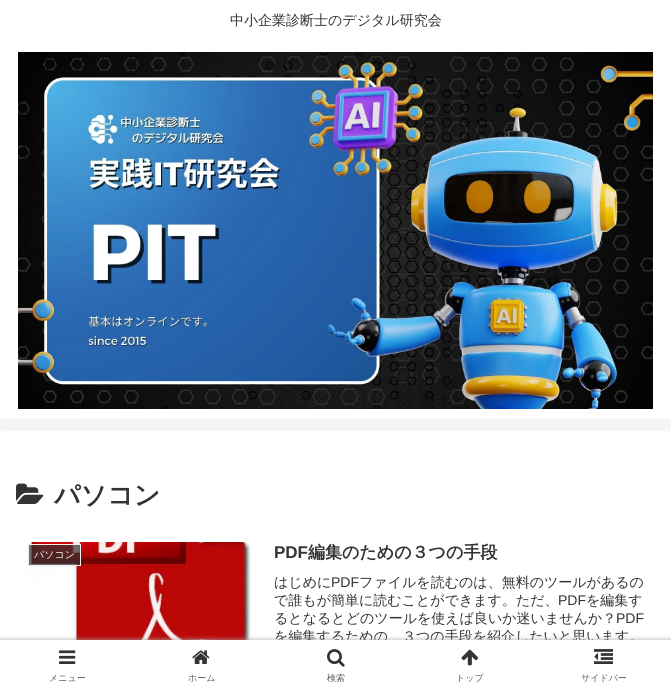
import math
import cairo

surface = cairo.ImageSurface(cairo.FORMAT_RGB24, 671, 690)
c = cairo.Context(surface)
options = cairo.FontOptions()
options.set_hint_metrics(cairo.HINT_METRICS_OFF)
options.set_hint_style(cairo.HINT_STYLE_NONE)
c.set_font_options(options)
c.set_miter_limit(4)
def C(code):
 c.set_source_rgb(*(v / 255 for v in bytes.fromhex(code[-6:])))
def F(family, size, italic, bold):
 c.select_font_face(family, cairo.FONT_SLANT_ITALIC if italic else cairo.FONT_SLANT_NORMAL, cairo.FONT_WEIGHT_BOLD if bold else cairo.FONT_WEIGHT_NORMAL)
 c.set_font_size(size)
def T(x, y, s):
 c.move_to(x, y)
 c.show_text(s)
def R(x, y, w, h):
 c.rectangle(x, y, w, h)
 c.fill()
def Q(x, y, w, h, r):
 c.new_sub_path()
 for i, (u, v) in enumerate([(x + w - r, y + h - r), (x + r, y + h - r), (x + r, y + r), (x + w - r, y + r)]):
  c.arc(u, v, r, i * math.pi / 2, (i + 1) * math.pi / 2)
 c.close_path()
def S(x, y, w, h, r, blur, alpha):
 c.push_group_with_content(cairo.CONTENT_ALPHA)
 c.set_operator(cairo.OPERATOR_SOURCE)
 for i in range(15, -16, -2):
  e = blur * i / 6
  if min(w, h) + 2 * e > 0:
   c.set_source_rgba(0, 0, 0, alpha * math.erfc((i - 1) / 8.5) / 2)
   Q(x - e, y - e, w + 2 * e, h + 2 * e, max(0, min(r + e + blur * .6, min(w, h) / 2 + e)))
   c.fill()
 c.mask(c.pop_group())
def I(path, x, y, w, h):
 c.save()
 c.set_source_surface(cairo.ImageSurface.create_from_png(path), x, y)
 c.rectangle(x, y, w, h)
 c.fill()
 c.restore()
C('f4f5f7')
c.paint()
C('ffffff')
R(0,0,671,419)
F('WenQuanYi Zen Hei Medium',14,0,0)
C('333333')
T(230,25,'中小企業診断士のデジタル研究会')
I('1.png',18,52,635,357)
C('ffffff')
Q(0,431,671,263,4)
c.fill()
I('2.png',16,483,28,21)
F('WenQuanYi Zen Hei',26,0,1)
C('333333')
T(54,504,'パソコン')
I('3.png',26,542,225,98)
c.set_source_rgba(0.2,0.2,0.2,0.7)
c.rectangle(28.5,544.5,52,21)
c.fill_preserve()
C('eeeeee')
c.set_line_width(1)
c.stroke()
F('WenQuanYi Zen Hei Medium',10,0,0)
C('ffffff')
T(34,558,'パソコン')
F('Liberation Sans',17,0,1)
C('333333')
T(274,558,'PDF')
F('WenQuanYi Zen Hei',17,0,1)
T(308,558,'編集のための３つの手段')
F('WenQuanYi Zen Hei Medium',14,0,0)
T(274,587,'はじめに')
F('Liberation Sans',14,0,0)
T(331,587,'PDF')
F('WenQuanYi Zen Hei Medium',14,0,0)
T(359,587,'ファイルを読むのは、無料のツールがあるの')
T(274,605,'で誰もが簡単に読むことができます。ただ、')
F('Liberation Sans',14,0,0)
T(558,605,'PDF')
F('WenQuanYi Zen Hei Medium',14,0,0)
T(586,605,'を編集す')
T(274,623,'るとなるとどのツールを使えば良いか迷いませんか？')
F('Liberation Sans',14,0,0)
T(616,623,'PDF')
F('WenQuanYi Zen Hei Medium',14,0,0)
T(274,641,'を編集するための、３つの手段を紹介したいと思います。')
C('a9a9a9')
S(0,640,671,50,0,2.5,1)
C('ffffff')
R(0,640,671,50)
I('4.png',59,650,17,14)
F('WenQuanYi Zen Hei Medium',9,0,0)
C('5c5c5c')
T(49,681,'メニュー')
I('5.png',192,650,18,14)
T(188,681,'ホーム')
I('6.png',327,649,18,18)
T(327,681,'検索')
I('7.png',461,649,17,17)
T(456,681,'トップ')
I('8.png',594,649,19,15)
T(581,681,'サイドバー')
surface.write_to_png('o.png')
